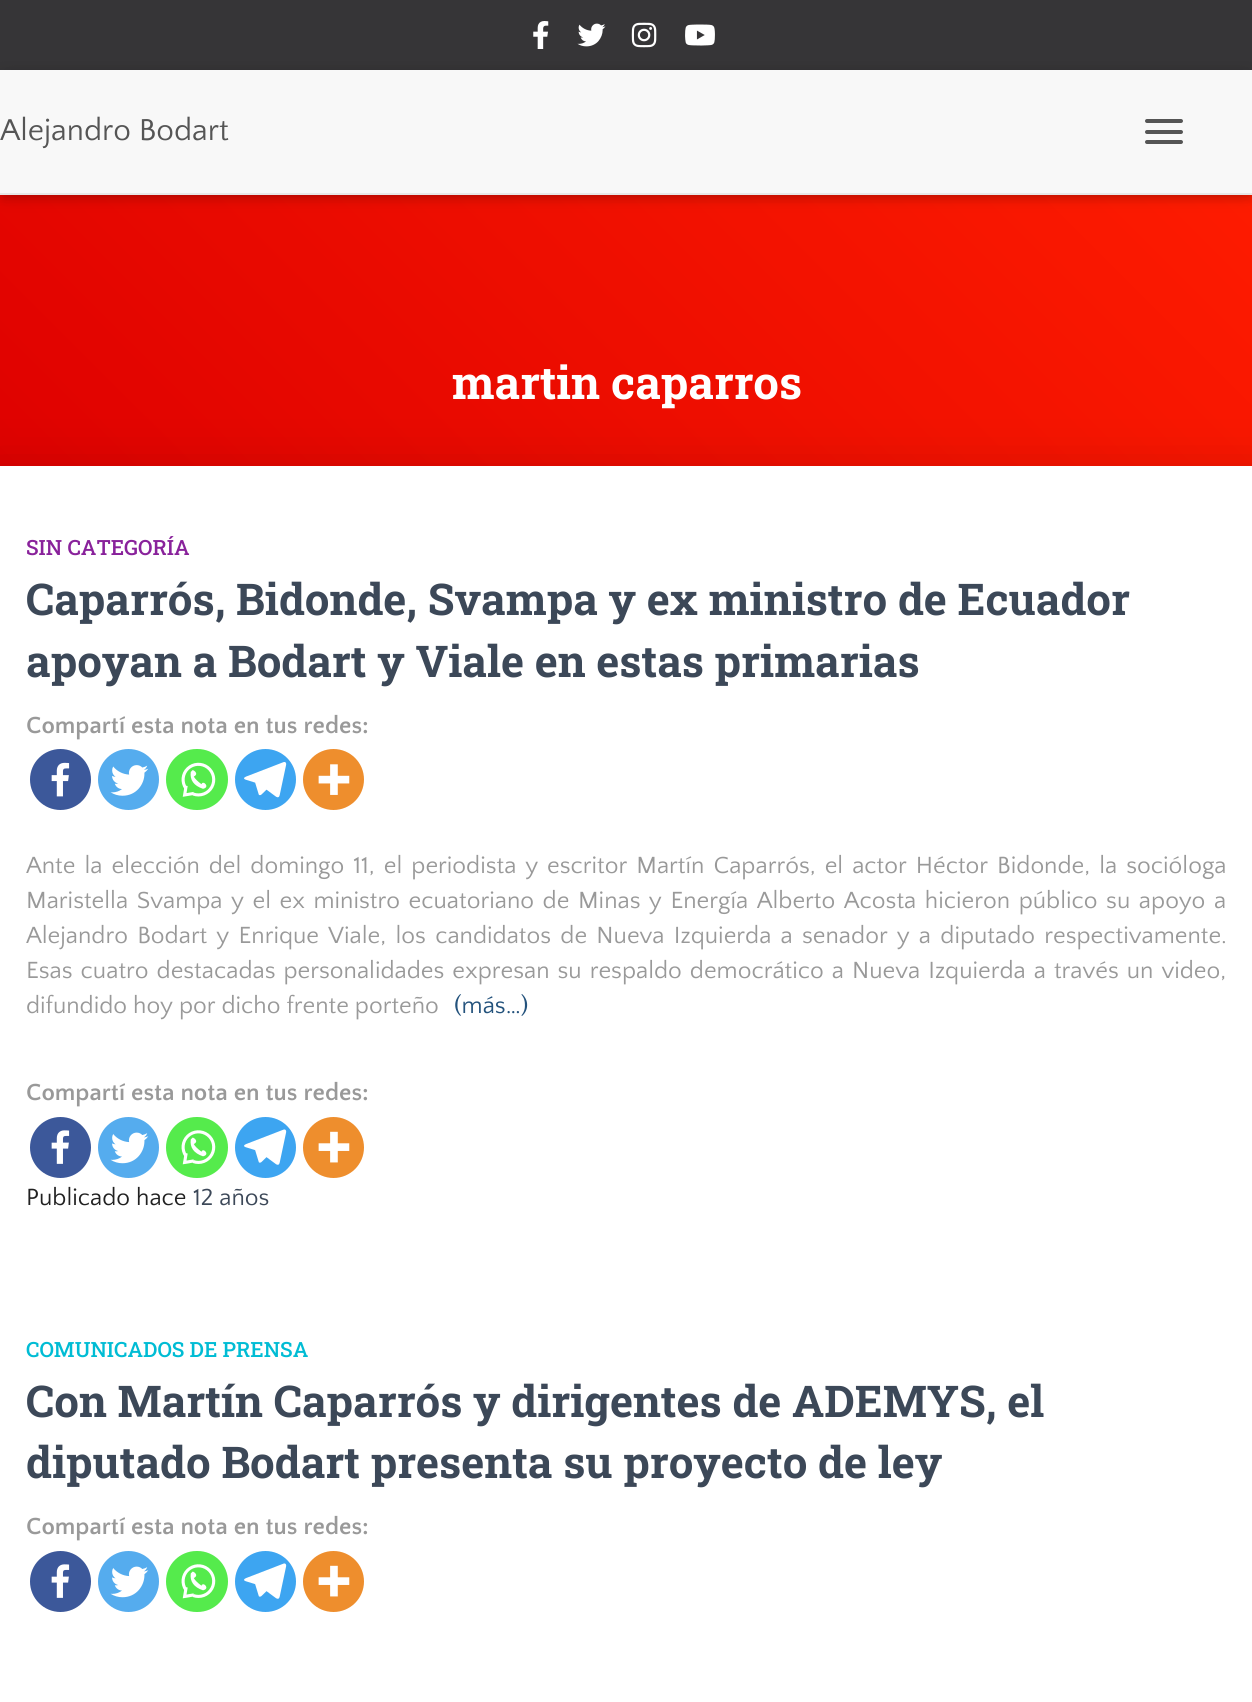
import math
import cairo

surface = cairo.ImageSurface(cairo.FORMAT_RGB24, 1252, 1702)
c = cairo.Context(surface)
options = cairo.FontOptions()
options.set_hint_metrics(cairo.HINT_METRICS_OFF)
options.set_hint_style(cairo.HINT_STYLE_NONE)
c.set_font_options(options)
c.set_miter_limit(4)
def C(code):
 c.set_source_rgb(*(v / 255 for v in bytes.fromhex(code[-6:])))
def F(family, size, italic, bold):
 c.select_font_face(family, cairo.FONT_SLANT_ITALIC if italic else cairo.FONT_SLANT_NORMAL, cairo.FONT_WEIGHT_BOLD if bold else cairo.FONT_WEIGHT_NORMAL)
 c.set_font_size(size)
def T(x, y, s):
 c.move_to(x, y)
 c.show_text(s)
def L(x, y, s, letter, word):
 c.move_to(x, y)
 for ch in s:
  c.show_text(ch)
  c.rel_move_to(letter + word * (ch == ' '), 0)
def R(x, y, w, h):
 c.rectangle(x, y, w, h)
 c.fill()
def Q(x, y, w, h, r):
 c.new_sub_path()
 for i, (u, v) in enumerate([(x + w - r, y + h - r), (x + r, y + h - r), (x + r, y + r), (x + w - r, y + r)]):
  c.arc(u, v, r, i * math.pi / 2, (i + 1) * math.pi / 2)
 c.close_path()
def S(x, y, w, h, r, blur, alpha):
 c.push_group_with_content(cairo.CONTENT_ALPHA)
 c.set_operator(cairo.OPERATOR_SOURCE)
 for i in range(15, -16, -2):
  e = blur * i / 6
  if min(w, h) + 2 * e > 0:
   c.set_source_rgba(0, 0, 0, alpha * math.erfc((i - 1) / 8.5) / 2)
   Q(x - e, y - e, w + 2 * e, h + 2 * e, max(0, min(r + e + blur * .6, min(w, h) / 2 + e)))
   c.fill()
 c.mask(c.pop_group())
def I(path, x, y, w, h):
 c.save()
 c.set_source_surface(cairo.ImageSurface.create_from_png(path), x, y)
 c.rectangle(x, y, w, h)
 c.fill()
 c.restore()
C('363537')
c.paint()
I('1.png',533,21,16,28)
I('2.png',577,23,29,24)
I('3.png',631,22,26,26)
I('4.png',685,24,30,22)
gradient = cairo.LinearGradient(215,749,1038,-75)
gradient.add_color_stop_rgba(0,0.867,0,0,1)
gradient.add_color_stop_rgba(1,1,0.11,0,1)
c.set_source(gradient)
R(0,195,1252,271)
C('000000')
S(4,81,1246,117,0,4.5,.1)
S(0,72,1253,124,0,9,.12)
S(11,82,1232,104,0,9,.42)
C('f8f8f8')
R(0,70,1252,123)
C('e7e7e7')
R(0,193,1252,2)
F('Quattrocento Sans',31.5,0,0)
C('555555')
T(0,140,'Alejandro Bodart')
Q(1145,119,38,4,2)
c.fill()
Q(1145,130,38,4,2)
c.fill()
Q(1145,140,38,4,2)
c.fill()
F('Roboto Slab',45.5,0,1)
C('ffffff')
T(452,399,'martin caparros')
C('000000')
S(-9,467,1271,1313,0,26,.12)
C('ffffff')
R(0,466,1252,1236)
F('Roboto Slab Medium',21,0,0)
C('89229b')
T(26,555,'SIN CATEGORÍA')
F('Roboto Slab',43.75,0,1)
C('3c4858')
T(26,615,'Caparrós, Bidonde, Svampa y ex ministro de Ecuador')
T(26,677,'apoyan a Bodart y Viale en estas primarias')
F('Quattrocento Sans',24.5,0,1)
C('999999')
T(26,733,'Compartí esta nota en tus redes:')
C('3c589a')
c.new_path()
c.arc(60.5,779.5,30.5,0,2 * math.pi)
c.fill()
I('5.png',51,762,19,35)
C('55acee')
c.arc(128.5,779.5,30.5,0,2 * math.pi)
c.fill()
I('6.png',110,765,39,31)
C('55eb4c')
Q(166,749,62,61,30.5)
c.fill()
I('7.png',181,762,35,35)
C('3da5f1')
c.arc(265.5,779.5,30.5,0,2 * math.pi)
c.fill()
I('8.png',244,762,43,36)
C('ee8e2d')
c.arc(333.5,779.5,30.5,0,2 * math.pi)
c.fill()
I('9.png',318,764,32,31)
F('Quattrocento Sans',24.5,0,0)
C('999999')
L(26,873,'Ante la elección del domingo 11, el periodista y escritor Martín Caparrós, el actor Héctor Bidonde, la socióloga',0,3)
L(26,908,'Maristella Svampa y el ex ministro ecuatoriano de Minas y Energía Alberto Acosta hicieron público su apoyo a',0,2.6)
L(26,943,'Alejandro Bodart y Enrique Viale, los candidatos de Nueva Izquierda a senador y a diputado respectivamente.',0,3.25)
L(26,978,'Esas cuatro destacadas personalidades expresan su respaldo democrático a Nueva Izquierda a través un video,',0,2)
T(26,1013,'difundido hoy por dicho frente porteño')
C('23527c')
T(454,1013,'(más…)')
F('Quattrocento Sans',24.5,0,1)
C('999999')
T(26,1100,'Compartí esta nota en tus redes:')
C('3c589a')
c.new_path()
c.arc(60.5,1147.5,30.5,0,2 * math.pi)
c.fill()
I('10.png',51,1130,19,34)
C('55acee')
c.arc(128.5,1147.5,30.5,0,2 * math.pi)
c.fill()
I('11.png',110,1132,39,32)
C('55eb4c')
Q(166,1117,62,61,30.5)
c.fill()
I('12.png',181,1130,35,35)
C('3da5f1')
c.arc(265.5,1147.5,30.5,0,2 * math.pi)
c.fill()
I('13.png',244,1129,43,36)
C('ee8e2d')
c.arc(333.5,1147.5,30.5,0,2 * math.pi)
c.fill()
I('14.png',318,1131,32,32)
F('Quattrocento Sans',24.5,0,0)
C('212121')
T(26,1205,'Publicado hace')
C('3c4858')
T(193,1205,'12 años')
F('Roboto Slab Medium',21,0,0)
C('00bcd4')
T(26,1357,'COMUNICADOS DE PRENSA')
F('Roboto Slab',43.75,0,1)
C('3c4858')
T(26,1417,'Con Martín Caparrós y dirigentes de ADEMYS, el')
T(26,1478,'diputado Bodart presenta su proyecto de ley')
F('Quattrocento Sans',24.5,0,1)
C('999999')
T(26,1534,'Compartí esta nota en tus redes:')
C('3c589a')
c.new_path()
c.arc(60.5,1581.5,30.5,0,2 * math.pi)
c.fill()
I('10.png',51,1564,19,34)
C('55acee')
c.arc(128.5,1581.5,30.5,0,2 * math.pi)
c.fill()
I('11.png',110,1566,39,32)
C('55eb4c')
Q(166,1551,62,61,30.5)
c.fill()
I('12.png',181,1564,35,35)
C('3da5f1')
c.arc(265.5,1581.5,30.5,0,2 * math.pi)
c.fill()
I('13.png',244,1563,43,36)
C('ee8e2d')
c.arc(333.5,1581.5,30.5,0,2 * math.pi)
c.fill()
I('14.png',318,1565,32,32)
surface.write_to_png('o.png')
